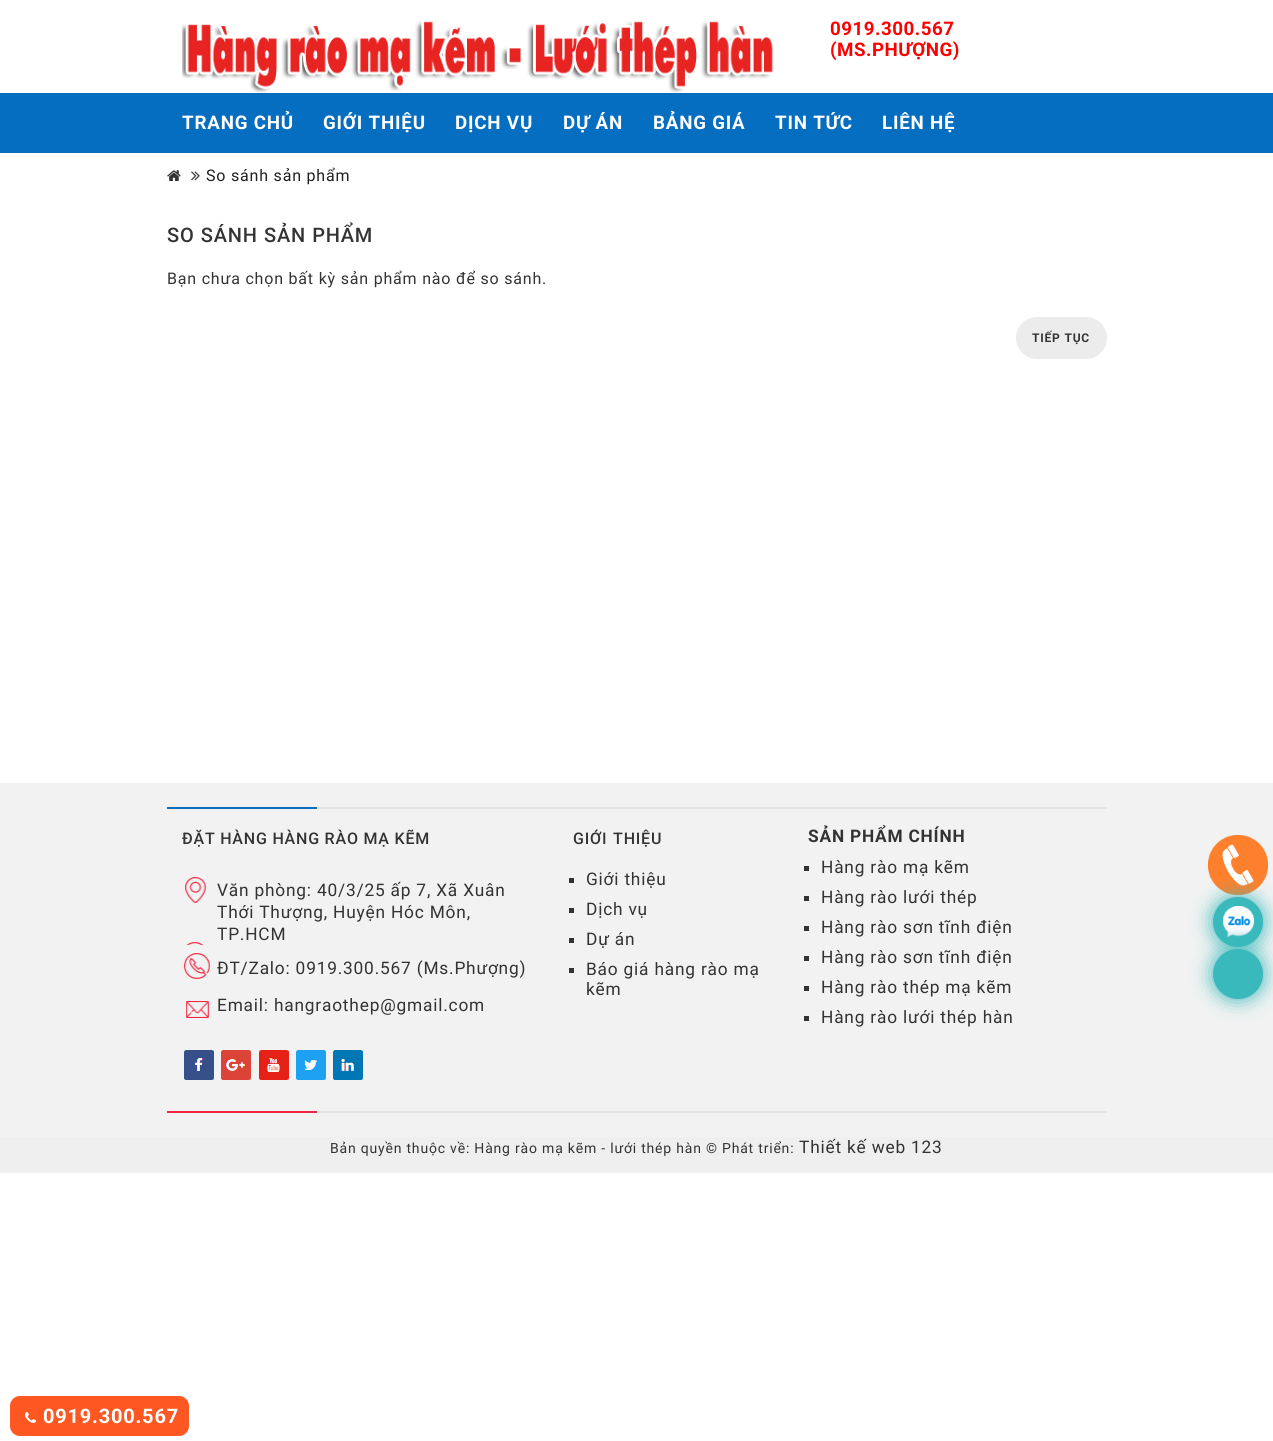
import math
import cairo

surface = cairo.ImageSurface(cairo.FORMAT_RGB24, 1273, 1441)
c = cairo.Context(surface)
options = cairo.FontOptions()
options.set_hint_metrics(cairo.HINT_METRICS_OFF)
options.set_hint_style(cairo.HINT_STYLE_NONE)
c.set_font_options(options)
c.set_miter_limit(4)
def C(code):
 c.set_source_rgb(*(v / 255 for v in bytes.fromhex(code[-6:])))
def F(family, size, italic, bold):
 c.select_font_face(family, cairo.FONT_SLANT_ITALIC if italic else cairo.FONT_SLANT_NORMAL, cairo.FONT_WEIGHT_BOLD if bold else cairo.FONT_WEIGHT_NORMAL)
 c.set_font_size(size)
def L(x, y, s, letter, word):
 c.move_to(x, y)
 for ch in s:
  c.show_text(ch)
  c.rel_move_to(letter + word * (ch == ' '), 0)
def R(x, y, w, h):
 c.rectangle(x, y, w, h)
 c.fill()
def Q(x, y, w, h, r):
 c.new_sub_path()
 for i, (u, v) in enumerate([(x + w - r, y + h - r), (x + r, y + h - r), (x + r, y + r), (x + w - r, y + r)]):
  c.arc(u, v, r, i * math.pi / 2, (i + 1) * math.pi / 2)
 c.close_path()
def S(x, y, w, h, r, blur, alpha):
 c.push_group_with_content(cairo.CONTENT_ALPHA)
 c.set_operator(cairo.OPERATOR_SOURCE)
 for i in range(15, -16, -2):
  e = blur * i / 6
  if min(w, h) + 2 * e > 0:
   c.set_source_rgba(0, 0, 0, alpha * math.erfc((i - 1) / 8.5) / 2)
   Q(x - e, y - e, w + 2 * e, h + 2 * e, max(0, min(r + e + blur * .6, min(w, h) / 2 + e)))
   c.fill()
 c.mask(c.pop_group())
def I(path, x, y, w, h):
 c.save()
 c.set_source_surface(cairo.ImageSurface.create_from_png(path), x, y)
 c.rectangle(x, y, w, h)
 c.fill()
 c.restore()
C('ffffff')
c.paint()
I('1.png',182,21,591,72)
F('Roboto',18.75,0,1)
C('ff0000')
L(830,35,'0919.300.567',.5,0)
L(830,56,'(MS.PHƯỢNG)',.5,0)
C('066ec0')
R(0,93,1273,60)
C('ffffff')
L(182,129,'TRANG CHỦ',.8,0)
L(323,129,'GIỚI THIỆU',.8,0)
L(455,129,'DỊCH VỤ',.8,0)
L(563,129,'DỰ ÁN',.8,0)
L(653,129,'BẢNG GIÁ',.8,0)
L(775,129,'TIN TỨC',.8,0)
L(882,129,'LIÊN HỆ',.8,0)
I('2.png',167,170,14,11)
I('3.png',191,171,9,10)
F('Roboto',16,0,0)
C('1f2022')
L(206,181,'So sánh sản phẩm',.8,0)
F('Roboto Medium',20,0,0)
C('333333')
L(167,242,'SO SÁNH SẢN PHẨM',.8,.5)
F('Roboto',16,0,0)
L(167,284,'Bạn chưa chọn bất kỳ sản phẩm nào để so sánh.',.8,0)
C('ececec')
Q(1016.5,317.5,90,41,20.5)
c.fill_preserve()
c.set_line_width(1)
c.stroke()
F('Roboto',12,0,1)
C('333333')
L(1032,342,'TIẾP TỤC',.8,0)
C('f2f2f2')
R(0,783,1273,354)
C('e5e5e5')
R(317,807,790,2)
R(317,1111,790,2)
C('066ec0')
R(167,807,150,2)
F('Roboto Medium',16,0,0)
C('333333')
L(182,844,'ĐẶT HÀNG HÀNG RÀO MẠ KẼM',.8,0)
I('4.png',185,877,21,68)
F('Roboto',17.3,0,0)
L(217,896,'Văn phòng: 40/3/25 ấp 7, Xã Xuân',.8,0)
L(217,918,'Thới Thượng, Huyện Hóc Môn,',.8,0)
L(217,940,'TP.HCM',.8,0)
I('5.png',184,953,26,26)
L(217,974,'ĐT/Zalo: 0919.300.567 (Ms.Phượng)',.8,0)
I('6.png',186,1001,23,17)
L(217,1011,'Email: hangraothep@gmail.com',.8,0)
I('7.png',184,1050,30,30)
I('8.png',220,1050,31,31)
I('9.png',259,1050,30,30)
I('10.png',296,1049,31,31)
I('11.png',333,1050,30,30)
F('Roboto Medium',16,0,0)
L(573,844,'GIỚI THIỆU',.8,1)
R(569,878,5,5)
F('Roboto',17.3,0,0)
L(586,885,'Giới thiệu',.8,0)
R(569,908,5,5)
L(586,915,'Dịch vụ',.8,0)
R(569,938,5,5)
L(586,945,'Dự án',.8,0)
R(569,968,5,5)
L(586,975,'Báo giá hàng rào mạ',.8,0)
L(586,995,'kẽm',.8,0)
F('Roboto',17.3,0,1)
L(808,842,'SẢN PHẨM CHÍNH',.8,0)
R(804,866,5,5)
F('Roboto',17.3,0,0)
L(821,873,'Hàng rào mạ kẽm',.8,0)
R(804,896,5,5)
L(821,903,'Hàng rào lưới thép',.8,0)
R(804,926,5,5)
L(821,933,'Hàng rào sơn tĩnh điện',.8,0)
R(804,956,5,5)
L(821,963,'Hàng rào sơn tĩnh điện',.8,0)
R(804,986,5,5)
L(821,993,'Hàng rào thép mạ kẽm',.8,0)
R(804,1016,5,5)
L(821,1023,'Hàng rào lưới thép hàn',.8,0)
C('f02640')
R(167,1111,150,2)
C('efefef')
R(0,1137,1273,36)
F('Roboto',14,0,0)
C('333333')
L(330,1153,'Bản quyền thuộc về: Hàng rào mạ kẽm - lưới thép hàn © Phát triển:',.8,0)
F('Roboto',17.3,0,0)
L(799,1153,'Thiết kế web 123',.8,0)
I('12.png',1208,835,60,60)
C('39b9bc')
S(1213,897,50,50,25,10,1)
C('39b9bc')
c.arc(1238,922,25,0,2 * math.pi)
c.fill()
I('13.png',1223,906,31,31)
C('39b9bc')
S(1213,949,50,50,25,10,1)
C('39b9bc')
c.arc(1238,974,25,0,2 * math.pi)
c.fill()
C('fe5722')
Q(10,1396,179,40,10)
c.fill()
I('14.png',25,1412,11,11)
F('Roboto',20,0,1)
C('ffffff')
L(43,1423,'0919.300.567',.8,0)
surface.write_to_png('o.png')
